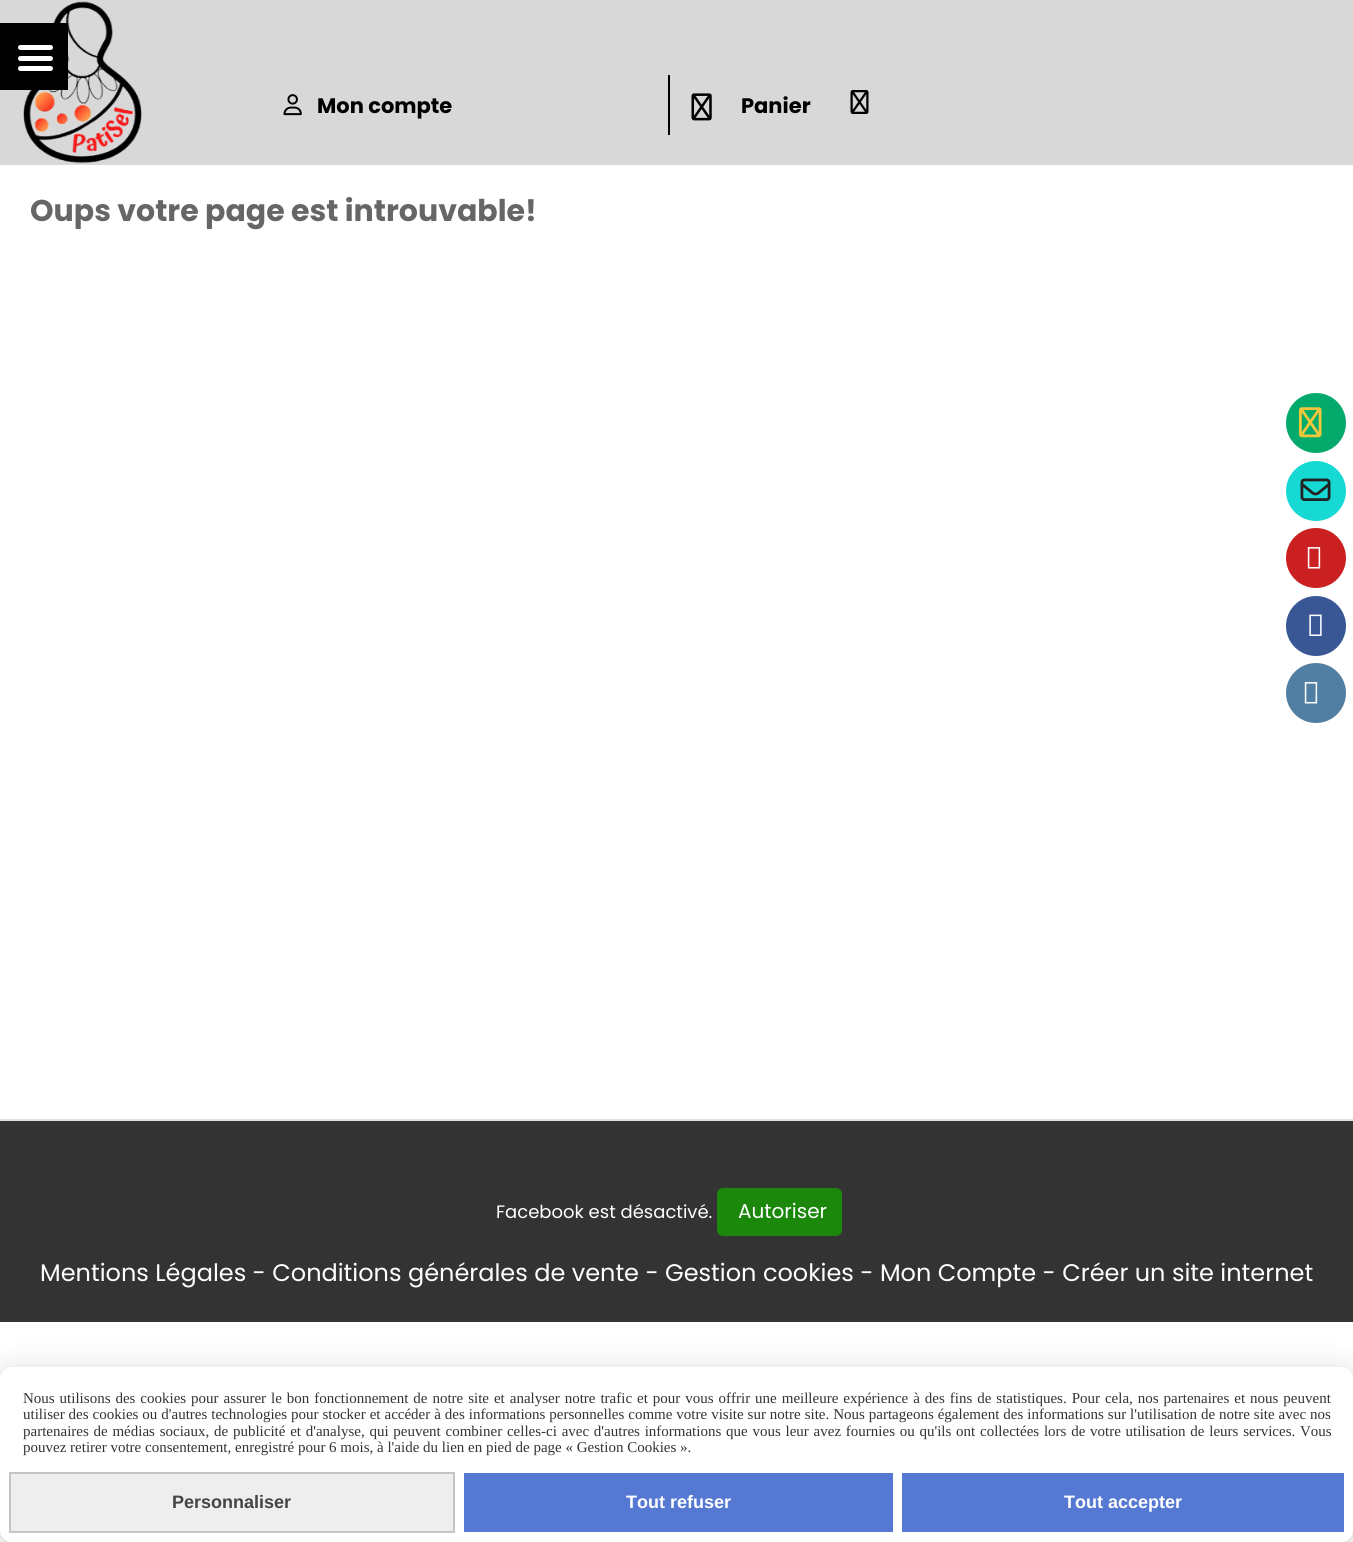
import math
import cairo

surface = cairo.ImageSurface(cairo.FORMAT_RGB24, 1353, 1542)
c = cairo.Context(surface)
options = cairo.FontOptions()
options.set_hint_metrics(cairo.HINT_METRICS_OFF)
options.set_hint_style(cairo.HINT_STYLE_NONE)
c.set_font_options(options)
c.set_miter_limit(4)
def C(code):
 c.set_source_rgb(*(v / 255 for v in bytes.fromhex(code[-6:])))
def F(family, size, italic, bold):
 c.select_font_face(family, cairo.FONT_SLANT_ITALIC if italic else cairo.FONT_SLANT_NORMAL, cairo.FONT_WEIGHT_BOLD if bold else cairo.FONT_WEIGHT_NORMAL)
 c.set_font_size(size)
def T(x, y, s):
 c.move_to(x, y)
 c.show_text(s)
def L(x, y, s, letter, word):
 c.move_to(x, y)
 for ch in s:
  c.show_text(ch)
  c.rel_move_to(letter + word * (ch == ' '), 0)
def R(x, y, w, h):
 c.rectangle(x, y, w, h)
 c.fill()
def Q(x, y, w, h, r):
 c.new_sub_path()
 for i, (u, v) in enumerate([(x + w - r, y + h - r), (x + r, y + h - r), (x + r, y + r), (x + w - r, y + r)]):
  c.arc(u, v, r, i * math.pi / 2, (i + 1) * math.pi / 2)
 c.close_path()
def S(x, y, w, h, r, blur, alpha):
 c.push_group_with_content(cairo.CONTENT_ALPHA)
 c.set_operator(cairo.OPERATOR_SOURCE)
 for i in range(15, -16, -2):
  e = blur * i / 6
  if min(w, h) + 2 * e > 0:
   c.set_source_rgba(0, 0, 0, alpha * math.erfc((i - 1) / 8.5) / 2)
   Q(x - e, y - e, w + 2 * e, h + 2 * e, max(0, min(r + e + blur * .6, min(w, h) / 2 + e)))
   c.fill()
 c.mask(c.pop_group())
def I(path, x, y, w, h):
 c.save()
 c.set_source_surface(cairo.ImageSurface.create_from_png(path), x, y)
 c.rectangle(x, y, w, h)
 c.fill()
 c.restore()
C('ffffff')
c.paint()
C('d8d8d8')
R(0,0,1353,165)
I('1.png',23,1,119,163)
C('000000')
R(0,23,68,67)
C('ffffff')
Q(18,45,35,5,2.5)
c.fill()
Q(18,56,35,5,2.5)
c.fill()
Q(18,66,35,5,2.5)
c.fill()
C('000000')
R(668,75,2,60)
I('2.png',283,94,19,22)
F('Poppins',21,0,1)
T(317,113,'Mon compte')
I('3.png',691,93,21,28)
T(741,113,'Panier')
I('4.png',850,90,19,24)
F('Poppins',30,0,1)
C('666666')
T(30,221,'Oups votre page est introuvable!')
C('333333')
R(0,1121,1353,201)
C('e1e1e1')
R(0,1119,1353,2)
F('Poppins',18,0,0)
C('ffffff')
T(496,1218,'Facebook est désactivé.')
C('1b870b')
Q(717,1188,125,48,6)
c.fill()
F('Poppins',20,0,0)
C('ffffff')
T(738,1218,'Autoriser')
F('Poppins',24,0,0)
T(40,1281,'Mentions Légales - Conditions générales de vente - Gestion cookies - Mon Compte - Créer un site internet')
C('03aa6c')
c.new_path()
c.arc(1316,423,30,0,2 * math.pi)
c.fill()
I('5.png',1299,407,23,31)
C('17d9d4')
c.arc(1316,491,30,0,2 * math.pi)
c.fill()
I('6.png',1300,478,31,23)
C('cb2021')
c.arc(1316,558,30,0,2 * math.pi)
c.fill()
I('7.png',1307,547,14,22)
C('3a5795')
c.arc(1316,626,30,0,2 * math.pi)
c.fill()
I('8.png',1309,614,13,22)
C('517fa4')
c.arc(1316,693,30,0,2 * math.pi)
c.fill()
I('9.png',1304,682,14,22)
C('000000')
S(0,1370,1353,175,12,4.5,.05)
S(0,1373,1353,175,12,18,.15)
C('ffffff')
Q(0,1367,1353,175,12)
c.fill()
F('Liberation Serif',15,0,0)
C('333333')
L(23,1403,'Nous utilisons des cookies pour assurer le bon fonctionnement de notre site et analyser notre trafic et pour vous offrir une meilleure expérience à des fins de statistiques. Pour cela, nos partenaires et nous peuvent',0,1.2)
L(23,1419,'utiliser des cookies ou d\'autres technologies pour stocker et accéder à des informations personnelles comme votre visite sur notre site. Nous partageons également des informations sur l\'utilisation de notre site avec nos',0,.2)
L(23,1436,'partenaires de médias sociaux, de publicité et d\'analyse, qui peuvent combiner celles-ci avec d\'autres informations que vous leur avez fournies ou qu\'ils ont collectées lors de votre utilisation de leurs services. Vous',0,1)
T(23,1452,'pouvez retirer votre consentement, enregistré pour 6 mois, à l\'aide du lien en pied de page « Gestion Cookies ».')
C('eeeeee')
c.rectangle(10,1473,444,59)
c.fill_preserve()
C('c5c5c5')
c.stroke()
F('Liberation Sans',18,0,1)
C('444444')
T(172,1508,'Personnaliser')
C('5579d2')
R(464,1473,429,59)
C('ffffff')
T(626,1508,'Tout refuser')
C('5579d2')
R(902,1473,442,59)
C('ffffff')
T(1064,1508,'Tout accepter')
surface.write_to_png('o.png')
